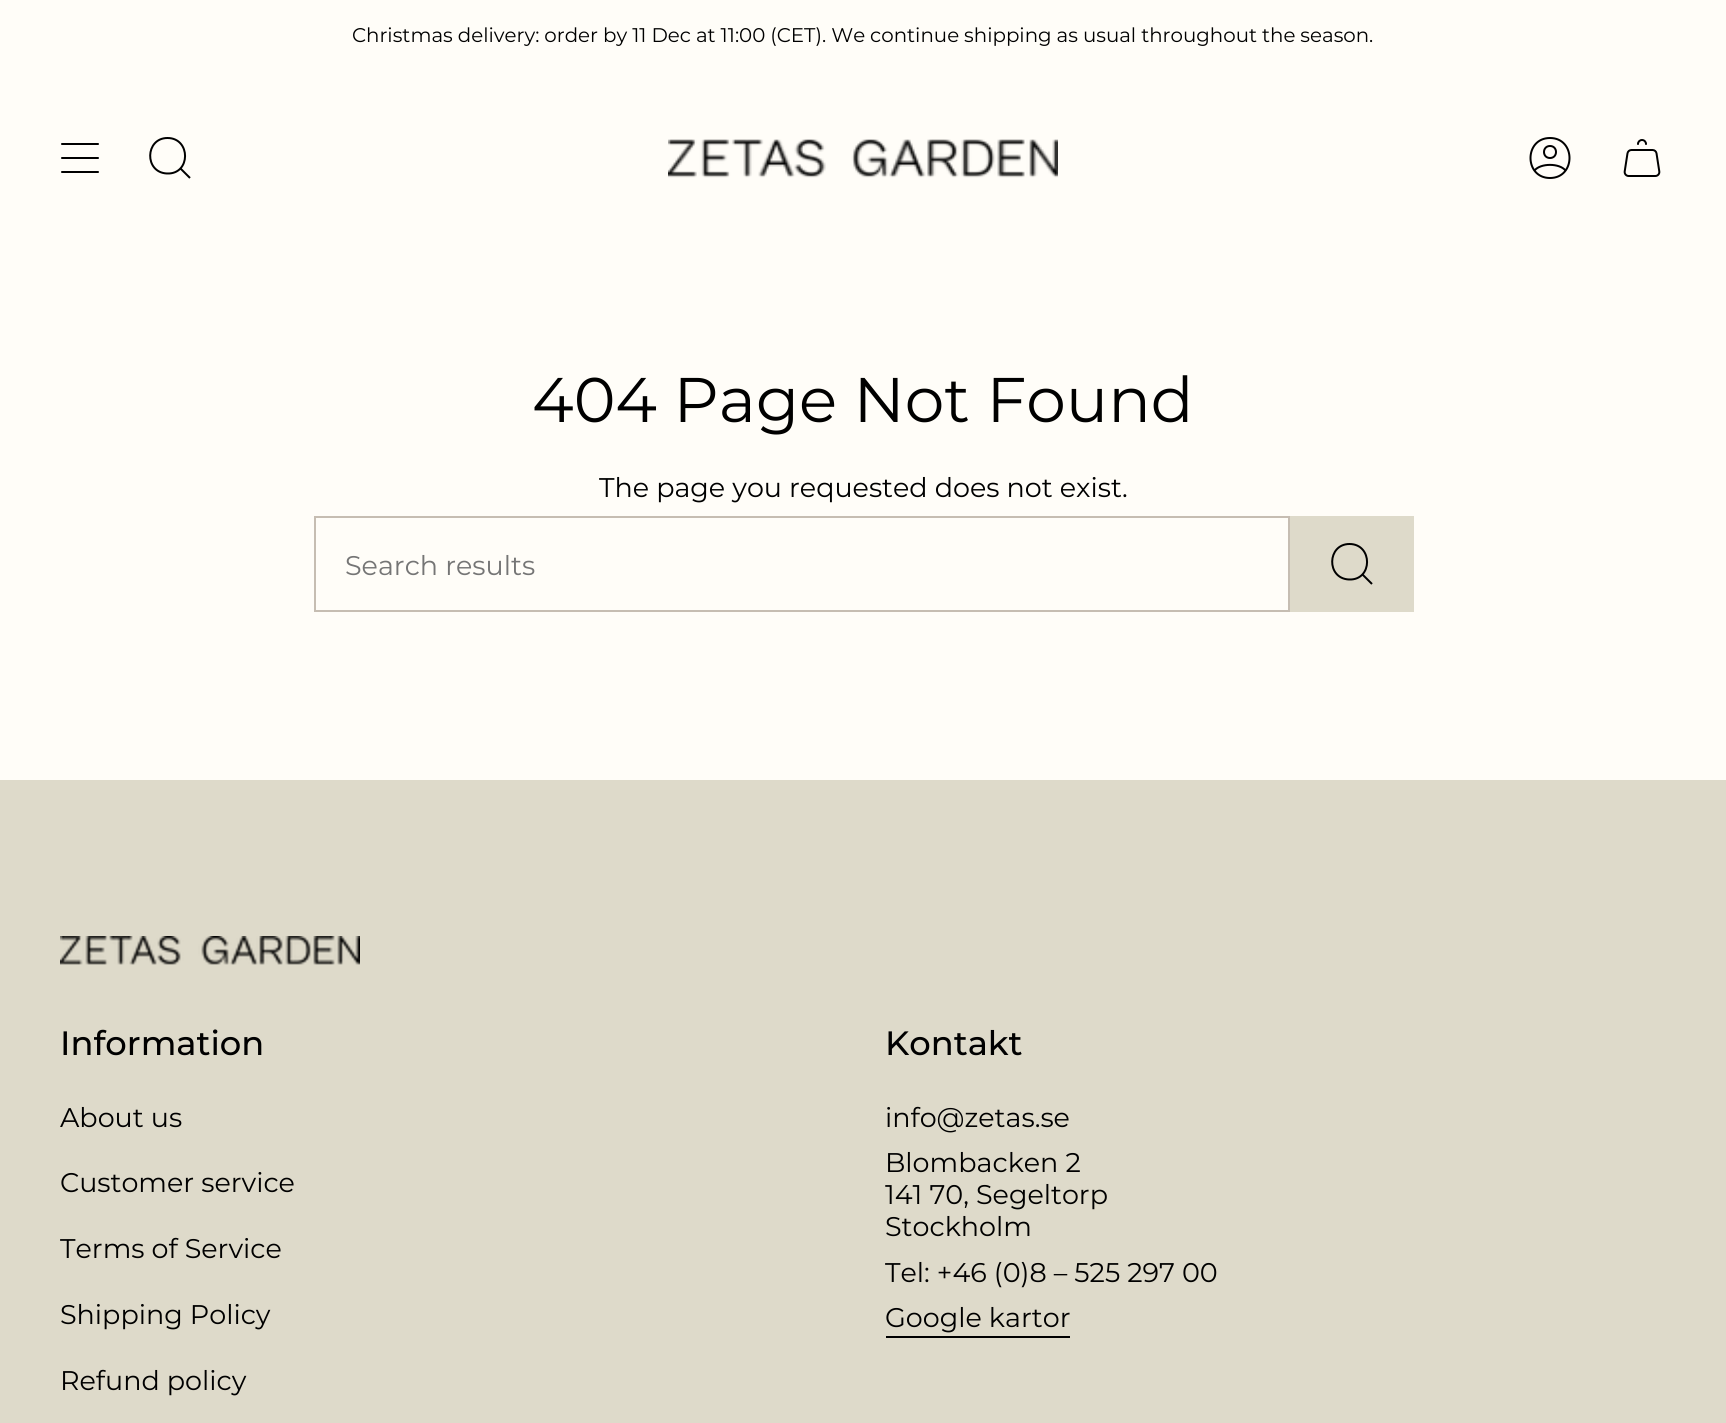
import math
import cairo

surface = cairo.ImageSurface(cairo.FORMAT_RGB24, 1726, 1423)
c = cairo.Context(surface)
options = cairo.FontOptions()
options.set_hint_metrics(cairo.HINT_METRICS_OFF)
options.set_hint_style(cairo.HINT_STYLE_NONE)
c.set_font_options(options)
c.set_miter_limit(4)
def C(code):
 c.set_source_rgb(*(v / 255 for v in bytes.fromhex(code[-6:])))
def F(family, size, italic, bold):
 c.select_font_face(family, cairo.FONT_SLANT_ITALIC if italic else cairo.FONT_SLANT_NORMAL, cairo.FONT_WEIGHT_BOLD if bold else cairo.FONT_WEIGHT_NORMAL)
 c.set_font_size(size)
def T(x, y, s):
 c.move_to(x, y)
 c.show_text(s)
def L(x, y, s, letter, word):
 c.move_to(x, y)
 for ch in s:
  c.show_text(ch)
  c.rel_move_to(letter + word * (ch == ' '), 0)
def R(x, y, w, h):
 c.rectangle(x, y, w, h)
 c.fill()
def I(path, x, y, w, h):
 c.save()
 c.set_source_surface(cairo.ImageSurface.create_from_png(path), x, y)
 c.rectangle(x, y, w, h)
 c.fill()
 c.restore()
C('fffdf8')
c.paint()
F('Montserrat',19.8,0,0)
C('000000')
L(352,42,'Christmas delivery: order by 11 Dec at 11:00 (CET). We continue shipping as usual throughout the season.',0,-.2)
c.new_path()
c.move_to(62,144)
c.line_to(98,144)
c.move_to(62,158)
c.line_to(98,158)
c.move_to(62,172)
c.line_to(98,172)
c.set_line_cap(cairo.LINE_CAP_ROUND)
c.set_line_join(cairo.LINE_JOIN_ROUND)
c.stroke()
c.new_path()
c.move_to(167.5,138)
c.curve_to(191,138,191,174.5,167,173.5)
c.curve_to(144,172.5,145,138,167.5,138)
c.close_path()
c.move_to(180,168)
c.line_to(190,178)
c.set_line_cap(cairo.LINE_CAP_BUTT)
c.set_line_join(cairo.LINE_JOIN_MITER)
c.stroke()
I('1.png',668,139,390,39)
c.new_path()
c.move_to(1550,138)
c.curve_to(1524,138,1524,178,1550,178)
c.curve_to(1576,178,1576,138,1550,138)
c.close_path()
c.move_to(1534.5,170.5)
c.curve_to(1540.5,163,1559.5,163,1565.5,170.5)
c.move_to(1550,158)
c.curve_to(1558,158,1558,146,1550,146)
c.curve_to(1542,146,1542,158,1550,158)
c.close_path()
c.set_line_cap(cairo.LINE_CAP_ROUND)
c.set_line_join(cairo.LINE_JOIN_ROUND)
c.stroke()
I('2.png',1623,139,38,38)
F('Montserrat',63,0,0)
T(532,422,'404 Page Not Found')
F('Montserrat',27,0,0)
T(599,497,'The page you requested does not exist.')
c.rectangle(315,517,974,94)
C('c6bdb2')
c.set_line_cap(cairo.LINE_CAP_BUTT)
c.set_line_join(cairo.LINE_JOIN_MITER)
c.stroke()
C('757575')
T(345,575,'Search results')
C('dedaca')
R(1290,516,124,96)
c.new_path()
c.move_to(1349.5,544)
c.curve_to(1373,544,1373,580.5,1349,579.5)
c.curve_to(1326,578.5,1327,544,1349.5,544)
c.close_path()
c.move_to(1362,574)
c.line_to(1372,584)
C('000000')
c.stroke()
C('dedaca')
R(0,780,1726,643)
I('3.png',60,936,300,29)
F('Montserrat Medium',33.75,0,0)
C('000000')
T(60,1055,'Information')
F('Montserrat',27,0,0)
T(60,1127,'About us')
T(60,1192,'Customer service')
T(60,1258,'Terms of Service')
T(60,1324,'Shipping Policy')
T(60,1390,'Refund policy')
F('Montserrat Medium',33.75,0,0)
T(885,1055,'Kontakt')
F('Montserrat',27,0,0)
T(885,1127,'info@zetas.se')
T(885,1172,'Blombacken 2')
T(885,1204,'141 70, Segeltorp')
T(885,1236,'Stockholm')
T(885,1282,'Tel: +46 (0)8 – 525 297 00')
T(885,1327,'Google kartor')
R(886,1336,184,2)
surface.write_to_png('o.png')
